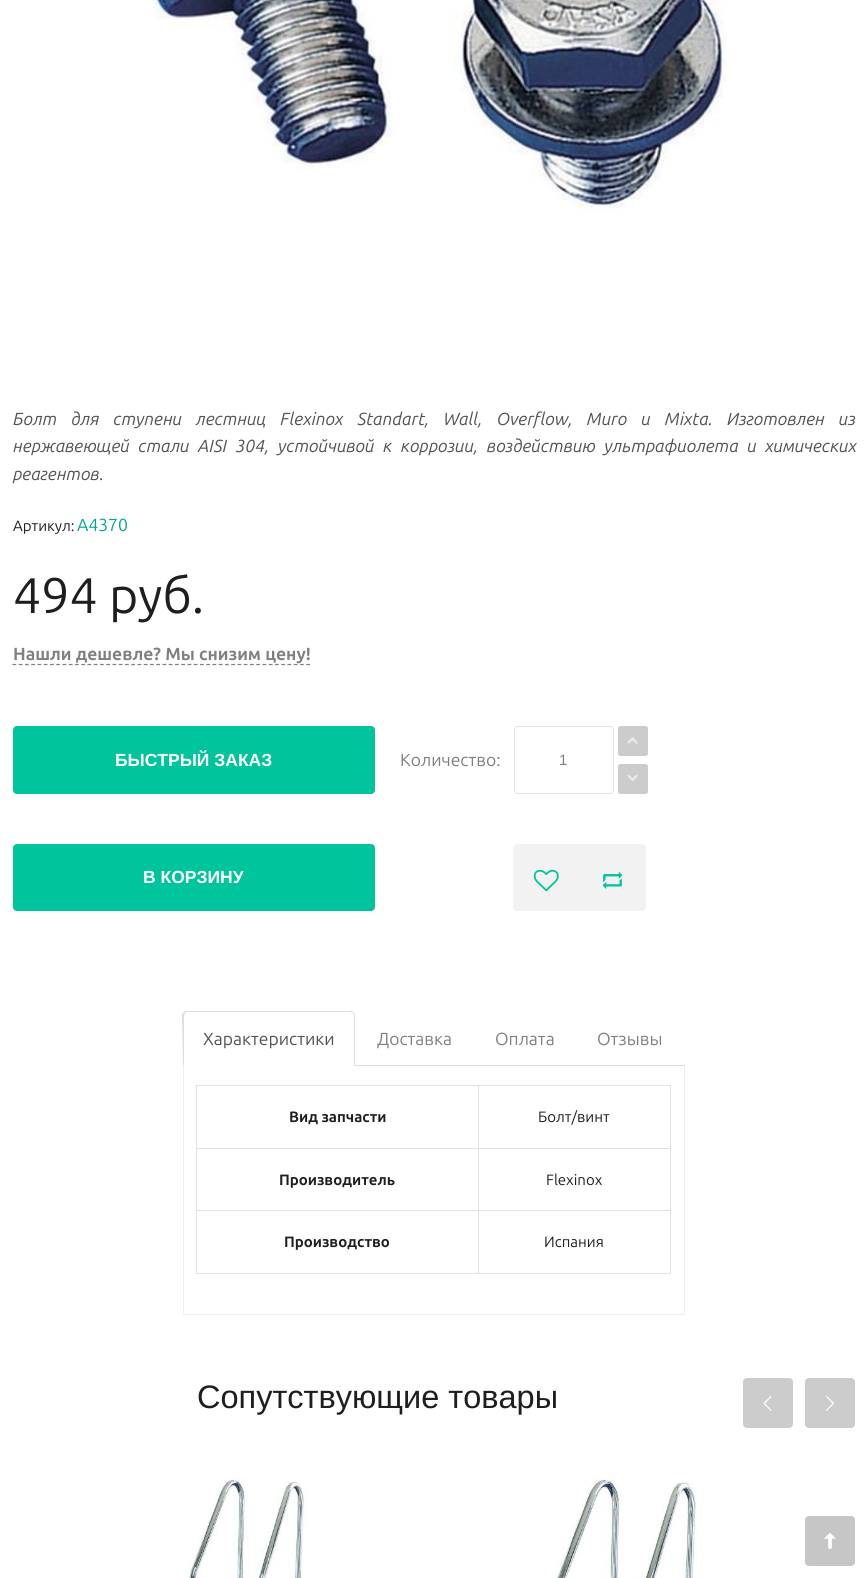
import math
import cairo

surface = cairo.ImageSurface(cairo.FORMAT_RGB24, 867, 1578)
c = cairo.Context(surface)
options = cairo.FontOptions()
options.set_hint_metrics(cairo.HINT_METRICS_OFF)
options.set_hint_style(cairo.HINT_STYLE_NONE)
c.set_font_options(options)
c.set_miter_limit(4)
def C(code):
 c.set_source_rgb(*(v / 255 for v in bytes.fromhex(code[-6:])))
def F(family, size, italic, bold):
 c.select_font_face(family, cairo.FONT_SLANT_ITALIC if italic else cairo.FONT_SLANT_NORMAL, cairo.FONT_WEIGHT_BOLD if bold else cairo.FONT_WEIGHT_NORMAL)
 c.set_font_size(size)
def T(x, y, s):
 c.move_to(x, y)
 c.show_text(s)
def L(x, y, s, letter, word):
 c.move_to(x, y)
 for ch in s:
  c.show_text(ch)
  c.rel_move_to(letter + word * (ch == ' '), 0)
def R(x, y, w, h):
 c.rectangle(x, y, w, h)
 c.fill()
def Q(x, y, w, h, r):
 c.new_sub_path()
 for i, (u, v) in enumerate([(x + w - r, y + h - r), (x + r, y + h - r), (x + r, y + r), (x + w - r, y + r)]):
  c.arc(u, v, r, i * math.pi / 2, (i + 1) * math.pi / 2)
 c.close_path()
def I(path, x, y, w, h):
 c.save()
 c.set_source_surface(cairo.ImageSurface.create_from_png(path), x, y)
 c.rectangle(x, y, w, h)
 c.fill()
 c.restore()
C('ffffff')
c.paint()
I('1.png',153,0,574,212)
F('Ubuntu',17.5,1,0)
C('525252')
L(13,425,'Болт для ступени лестниц Flexinox Standart, Wall, Overflow, Muro и Mixta. Изготовлен из',0,10)
L(13,452,'нержавеющей стали AISI 304, устойчивой к коррозии, воздействию ультрафиолета и химических',0,4.5)
T(13,480,'реагентов.')
F('Ubuntu',15,0,0)
C('1e1e1e')
T(13,531,'Артикул:')
F('Ubuntu',17.5,0,0)
C('00a693')
T(77,531,'А4370')
F('Ubuntu',50,0,0)
C('1e1e1e')
T(13,613,'494 руб.')
c.new_path()
c.move_to(12.5,664.5)
c.line_to(310,664.5)
C('7f7f7f')
c.set_line_width(1.2)
c.set_dash([3.75,2.5])
c.stroke()
F('Ubuntu',17.5,0,1)
T(13,660,'Нашли дешевле? Мы снизим цену!')
C('00c59c')
Q(13,726,362,68,4)
c.fill()
F('Liberation Sans',17.5,0,1)
C('ffffff')
T(115,766,'БЫСТРЫЙ ЗАКАЗ')
F('Ubuntu',17.5,0,0)
C('7f7f7f')
T(400,766,'Количество:')
Q(514.5,726.5,99,67,3.5)
C('e1e1e1')
c.set_line_width(1)
c.set_dash([])
c.stroke()
F('Liberation Sans',15,0,0)
C('7f7f7f')
T(559,765,'1')
C('cccccc')
Q(618,726,30,30,2.5)
c.fill()
I('2.png',627,737,11,7)
Q(618,764,30,30,2.5)
c.fill()
I('3.png',627,774,11,7)
C('00c59c')
Q(13,844,362,67,4)
c.fill()
F('Liberation Sans',17.5,0,1)
C('ffffff')
T(143,883,'В КОРЗИНУ')
C('f2f2f2')
c.new_path()
c.move_to(517,844)
c.line_to(580,844)
c.line_to(580,911)
c.line_to(517,911)
c.curve_to(515,911,513,909,513,907)
c.line_to(513,848)
c.curve_to(513,846,515,844,517,844)
c.close_path()
c.fill()
I('4.png',533,869,26,23)
c.new_path()
c.move_to(579,844)
c.line_to(642,844)
c.curve_to(644,844,646,846,646,848)
c.line_to(646,907)
c.curve_to(646,909,644,911,642,911)
c.line_to(579,911)
c.close_path()
c.fill()
I('5.png',602,871,21,18)
C('dddddd')
R(355,1065,330,1)
c.new_path()
c.move_to(188,1012)
c.curve_to(186,1012,185,1013,185,1013)
c.line_to(184,1012)
c.line_to(186,1011)
c.line_to(352,1011)
c.line_to(354,1013)
c.line_to(353,1013)
c.line_to(350,1012)
c.close_path()
c.fill()
c.new_path()
c.move_to(355,1066)
c.line_to(355,1016)
c.curve_to(355,1015,355,1013,354,1013)
c.line_to(353,1013)
c.curve_to(354,1014,354,1015,354,1016)
c.line_to(354,1065)
c.close_path()
c.fill()
c.new_path()
c.move_to(182,1014)
c.line_to(184,1012)
c.line_to(185,1013)
c.line_to(184,1016)
c.line_to(184,1065)
c.line_to(183,1066)
c.close_path()
c.fill()
F('Ubuntu',17.5,0,0)
C('525252')
T(203,1045,'Характеристики')
C('7f7f7f')
T(377,1045,'Доставка')
T(495,1045,'Оплата')
T(597,1045,'Отзывы')
C('eeeeee')
R(684,1066,1,249)
R(183,1314,502,1)
R(183,1066,1,249)
C('e1e1e1')
R(478,1085,193,1)
R(478,1148,193,1)
R(478,1210,193,1)
R(670,1210,1,64)
R(478,1273,193,1)
R(478,1210,1,64)
R(196,1210,283,1)
R(478,1148,1,63)
R(196,1148,283,1)
R(478,1085,1,64)
R(196,1085,283,1)
R(196,1273,283,1)
R(196,1210,1,64)
R(196,1148,1,63)
R(196,1085,1,64)
F('Ubuntu',15,0,1)
C('1e1e1e')
T(289,1122,'Вид запчасти')
C('e1e1e1')
R(670,1148,1,63)
R(670,1085,1,64)
F('Ubuntu',15,0,0)
C('1e1e1e')
T(538,1122,'Болт/винт')
F('Ubuntu',15,0,1)
T(279,1185,'Производитель')
F('Ubuntu',15,0,0)
T(546,1185,'Flexinox')
F('Ubuntu',15,0,1)
T(284,1247,'Производство')
F('Ubuntu',15,0,0)
T(544,1247,'Испания')
F('Arimo',32.5,0,0)
T(197,1408,'Сопутствующие товары')
C('cccccc')
Q(743,1378,50,50,4)
c.fill()
I('6.png',763,1396,9,15)
Q(805,1378,50,50,4)
c.fill()
I('7.png',826,1396,8,15)
I('8.png',188,1477,119,101)
I('9.png',555,1477,142,101)
C('c6c6c6')
Q(805,1516,50,50,4)
c.fill()
I('10.png',824,1533,12,16)
surface.write_to_png('o.png')
